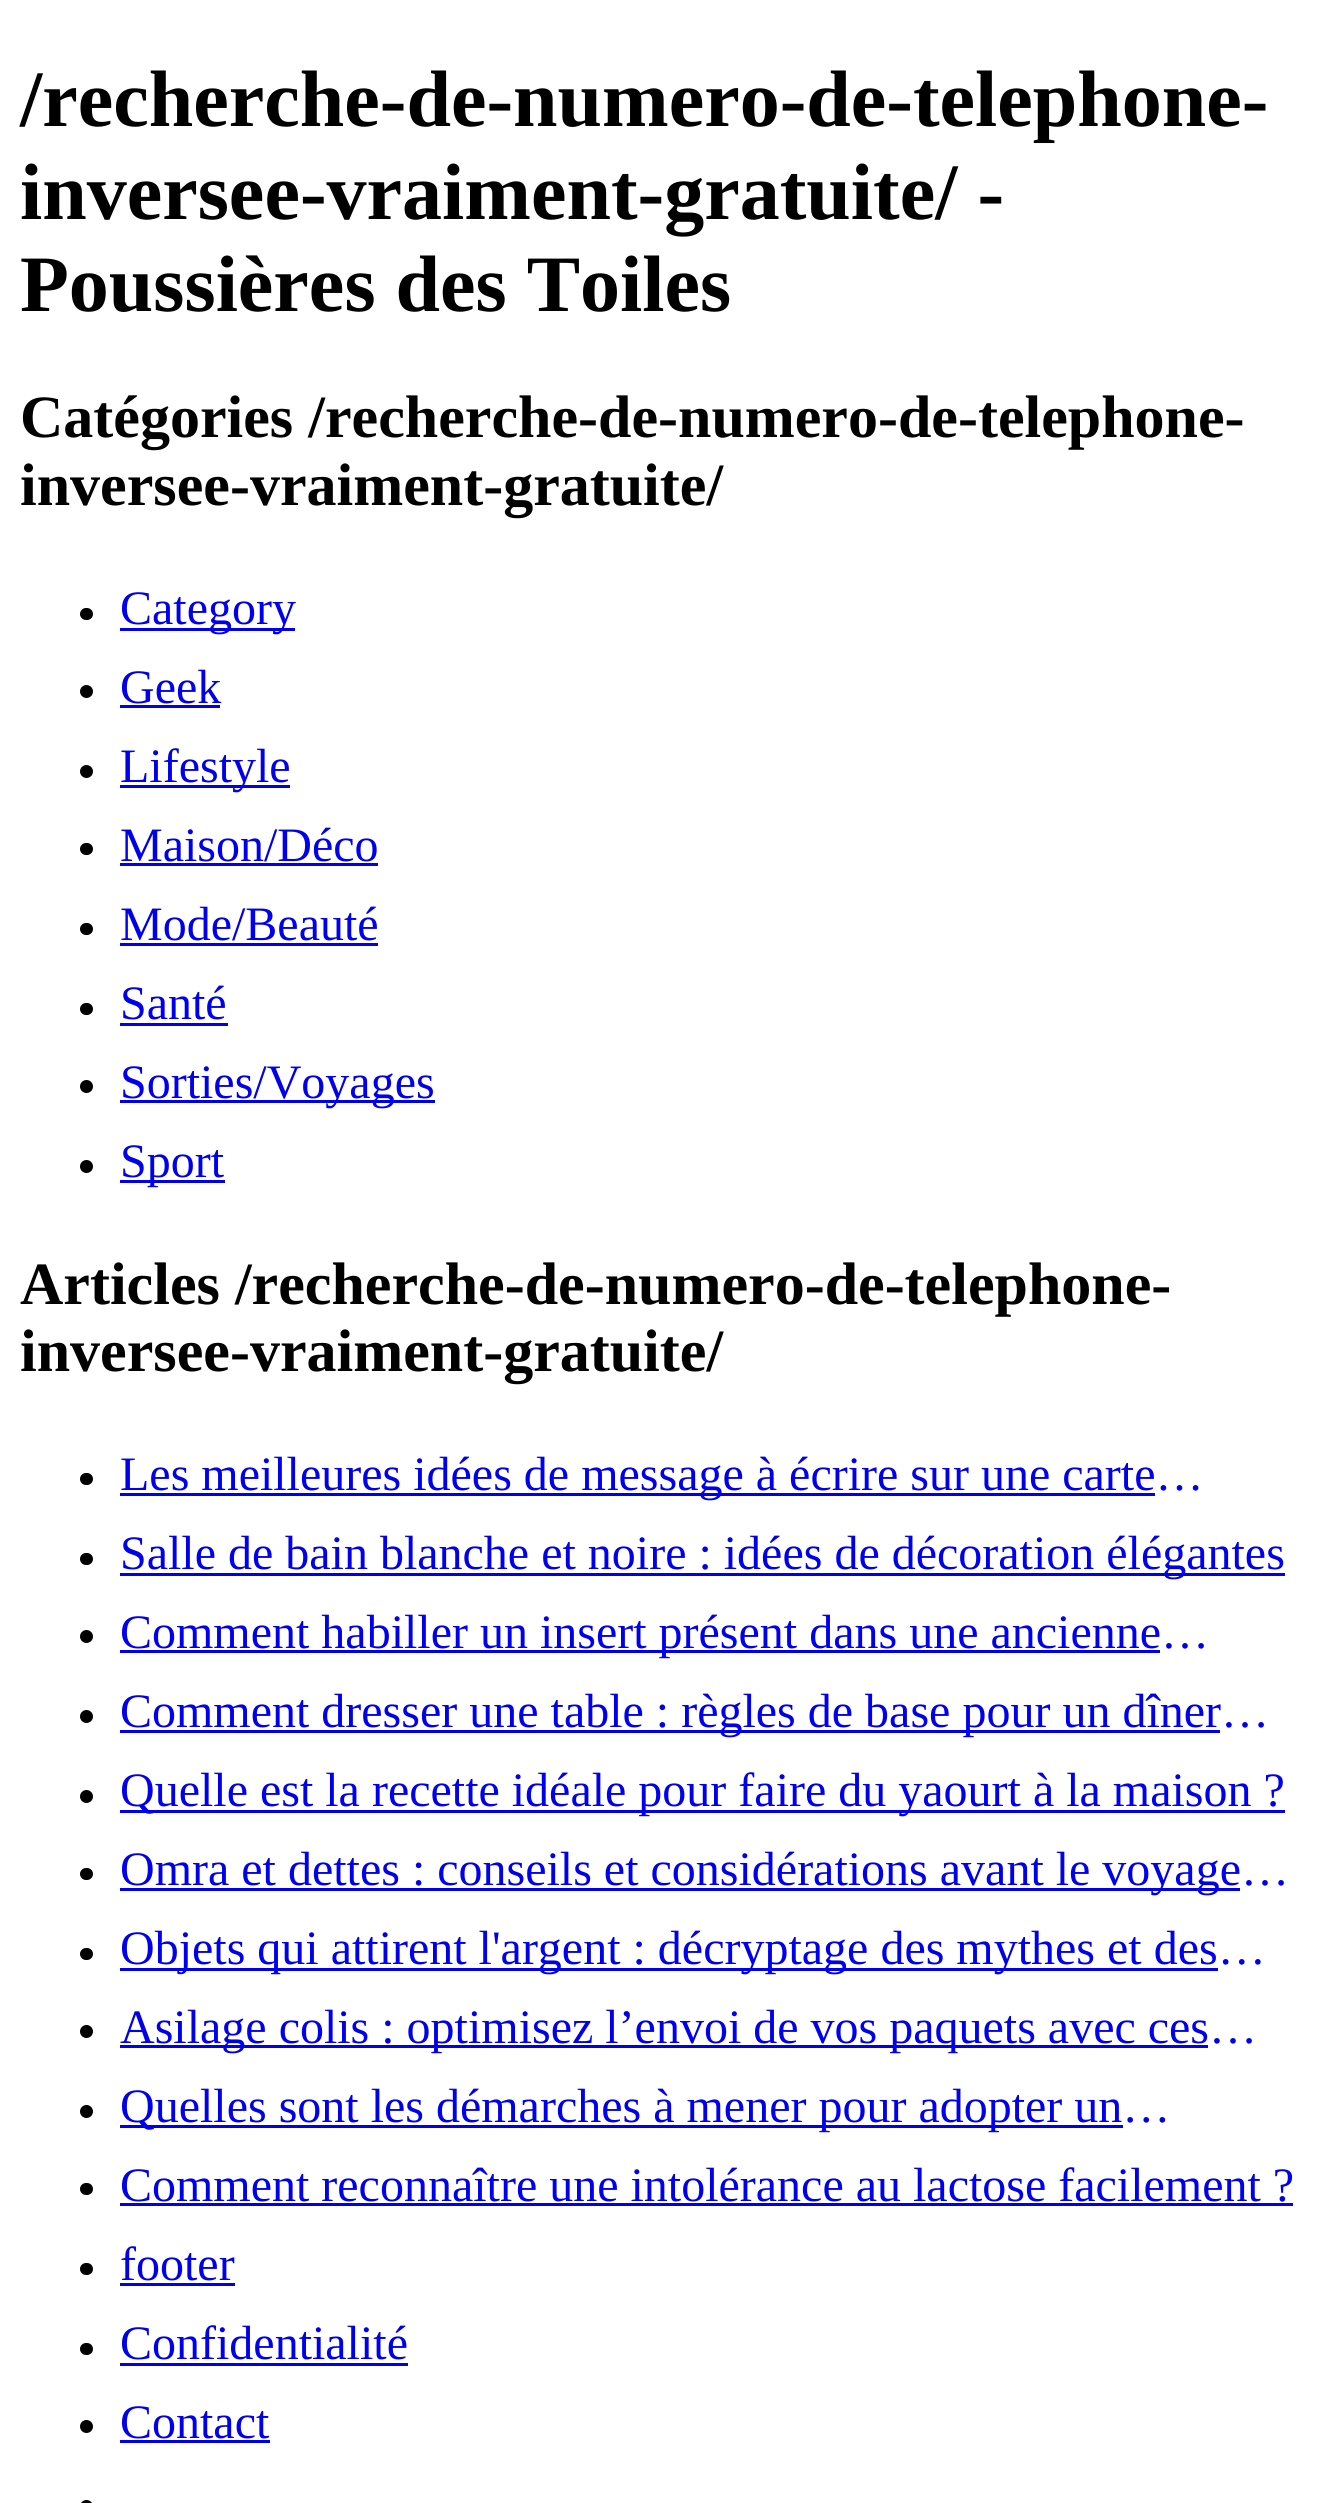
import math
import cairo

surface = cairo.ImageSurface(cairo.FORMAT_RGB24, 1319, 2503)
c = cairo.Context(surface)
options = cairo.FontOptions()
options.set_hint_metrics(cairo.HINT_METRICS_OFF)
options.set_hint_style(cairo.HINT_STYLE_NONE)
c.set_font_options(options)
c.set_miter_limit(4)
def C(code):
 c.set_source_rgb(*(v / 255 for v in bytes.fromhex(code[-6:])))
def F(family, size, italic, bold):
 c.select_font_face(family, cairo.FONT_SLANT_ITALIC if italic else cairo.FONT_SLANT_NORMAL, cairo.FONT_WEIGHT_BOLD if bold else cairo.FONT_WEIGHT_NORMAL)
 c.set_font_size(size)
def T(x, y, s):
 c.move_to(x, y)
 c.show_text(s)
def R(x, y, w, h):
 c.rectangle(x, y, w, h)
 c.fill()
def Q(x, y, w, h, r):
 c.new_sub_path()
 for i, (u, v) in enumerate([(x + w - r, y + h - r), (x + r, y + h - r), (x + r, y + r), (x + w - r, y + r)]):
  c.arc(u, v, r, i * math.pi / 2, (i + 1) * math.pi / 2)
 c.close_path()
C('ffffff')
c.paint()
F('Liberation Serif',80,0,1)
C('000000')
T(20,126,'/recherche-de-numero-de-telephone-')
T(20,219,'inversee-vraiment-gratuite/ -')
T(20,311,'Poussières des Toiles')
F('Liberation Serif',60,0,1)
T(20,437,'Catégories /recherche-de-numero-de-telephone-')
T(20,505,'inversee-vraiment-gratuite/')
Q(80,608,13,12,6)
c.fill()
C('0000ee')
R(120,628,175,3)
F('Liberation Serif',48,0,0)
T(120,624,'Category')
C('000000')
c.new_path()
c.arc(86.5,691.5,6.5,0,2 * math.pi)
c.fill()
C('0000ee')
T(120,703,'Geek')
R(120,705,100,3)
C('000000')
c.new_path()
c.arc(86.5,771.5,6.5,0,2 * math.pi)
c.fill()
C('0000ee')
R(120,785,170,3)
T(120,782,'Lifestyle')
C('000000')
Q(80,843,13,12,6)
c.fill()
C('0000ee')
T(120,861,'Maison/Déco')
R(120,863,258,3)
C('000000')
Q(80,923,13,12,6)
c.fill()
C('0000ee')
T(120,940,'Mode/Beauté')
R(120,943,258,3)
C('000000')
Q(80,1003,13,12,6)
c.fill()
C('0000ee')
T(120,1019,'Santé')
R(120,1023,108,3)
C('000000')
c.new_path()
c.arc(86.5,1086.5,6.5,0,2 * math.pi)
c.fill()
C('0000ee')
R(120,1100,315,3)
T(120,1098,'Sorties/Voyages')
C('000000')
c.new_path()
c.arc(86.5,1166.5,6.5,0,2 * math.pi)
c.fill()
C('0000ee')
R(120,1180,105,3)
T(120,1177,'Sport')
F('Liberation Serif',60,0,1)
C('000000')
T(20,1304,'Articles /recherche-de-numero-de-telephone-')
T(20,1371,'inversee-vraiment-gratuite/')
Q(80,1473,13,12,6)
c.fill()
C('0000ee')
R(120,1493,1035,3)
F('Liberation Serif',48,0,0)
T(120,1490,'Les meilleures idées de message à écrire sur une carte…')
C('000000')
Q(80,1553,13,12,6)
c.fill()
C('0000ee')
R(120,1573,1165,3)
T(120,1569,'Salle de bain blanche et noire : idées de décoration élégantes')
C('000000')
c.new_path()
c.arc(86.5,1636.5,6.5,0,2 * math.pi)
c.fill()
C('0000ee')
R(120,1650,1040,3)
T(120,1648,'Comment habiller un insert présent dans une ancienne…')
C('000000')
c.new_path()
c.arc(86.5,1716.5,6.5,0,2 * math.pi)
c.fill()
C('0000ee')
R(120,1730,1100,3)
T(120,1727,'Comment dresser une table : règles de base pour un dîner…')
C('000000')
c.new_path()
c.arc(86.5,1796.5,6.5,0,2 * math.pi)
c.fill()
C('0000ee')
R(120,1810,1165,3)
T(120,1806,'Quelle est la recette idéale pour faire du yaourt à la maison ?')
C('000000')
Q(80,1868,13,12,6)
c.fill()
C('0000ee')
R(120,1888,1120,3)
T(120,1885,'Omra et dettes : conseils et considérations avant le voyage…')
C('000000')
Q(80,1948,13,12,6)
c.fill()
C('0000ee')
R(120,1968,1098,3)
T(120,1964,'Objets qui attirent l\'argent : décryptage des mythes et des…')
C('000000')
c.new_path()
c.arc(86.5,2031.5,6.5,0,2 * math.pi)
c.fill()
C('0000ee')
R(120,2045,1088,3)
T(120,2043,'Asilage colis : optimisez l’envoi de vos paquets avec ces…')
C('000000')
c.new_path()
c.arc(86.5,2111.5,6.5,0,2 * math.pi)
c.fill()
C('0000ee')
R(120,2125,1003,3)
T(120,2122,'Quelles sont les démarches à mener pour adopter un…')
C('000000')
Q(80,2183,13,12,6)
c.fill()
C('0000ee')
T(120,2201,'Comment reconnaître une intolérance au lactose facilement ?')
R(120,2203,1173,3)
C('000000')
Q(80,2263,13,12,6)
c.fill()
C('0000ee')
T(120,2280,'footer')
R(120,2283,115,3)
C('000000')
Q(80,2343,13,12,6)
c.fill()
C('0000ee')
T(120,2359,'Confidentialité')
R(120,2363,288,3)
C('000000')
c.new_path()
c.arc(86.5,2426.5,6.5,0,2 * math.pi)
c.fill()
C('0000ee')
T(120,2438,'Contact')
R(120,2440,150,3)
C('000000')
Q(80,2500,13,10,6.5)
c.fill()
surface.write_to_png('o.png')
